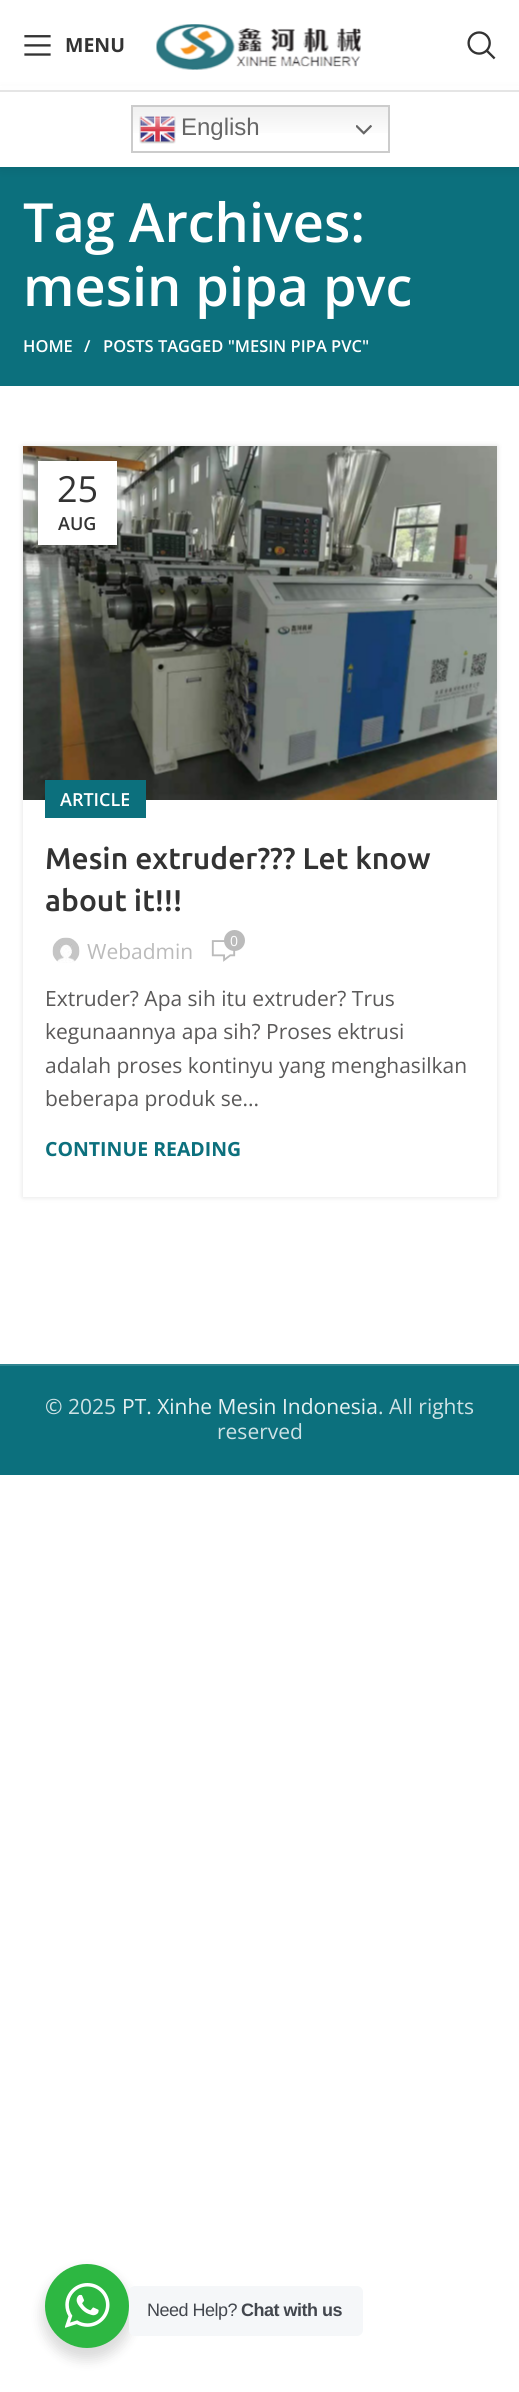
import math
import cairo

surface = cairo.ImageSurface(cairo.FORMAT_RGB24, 519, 2392)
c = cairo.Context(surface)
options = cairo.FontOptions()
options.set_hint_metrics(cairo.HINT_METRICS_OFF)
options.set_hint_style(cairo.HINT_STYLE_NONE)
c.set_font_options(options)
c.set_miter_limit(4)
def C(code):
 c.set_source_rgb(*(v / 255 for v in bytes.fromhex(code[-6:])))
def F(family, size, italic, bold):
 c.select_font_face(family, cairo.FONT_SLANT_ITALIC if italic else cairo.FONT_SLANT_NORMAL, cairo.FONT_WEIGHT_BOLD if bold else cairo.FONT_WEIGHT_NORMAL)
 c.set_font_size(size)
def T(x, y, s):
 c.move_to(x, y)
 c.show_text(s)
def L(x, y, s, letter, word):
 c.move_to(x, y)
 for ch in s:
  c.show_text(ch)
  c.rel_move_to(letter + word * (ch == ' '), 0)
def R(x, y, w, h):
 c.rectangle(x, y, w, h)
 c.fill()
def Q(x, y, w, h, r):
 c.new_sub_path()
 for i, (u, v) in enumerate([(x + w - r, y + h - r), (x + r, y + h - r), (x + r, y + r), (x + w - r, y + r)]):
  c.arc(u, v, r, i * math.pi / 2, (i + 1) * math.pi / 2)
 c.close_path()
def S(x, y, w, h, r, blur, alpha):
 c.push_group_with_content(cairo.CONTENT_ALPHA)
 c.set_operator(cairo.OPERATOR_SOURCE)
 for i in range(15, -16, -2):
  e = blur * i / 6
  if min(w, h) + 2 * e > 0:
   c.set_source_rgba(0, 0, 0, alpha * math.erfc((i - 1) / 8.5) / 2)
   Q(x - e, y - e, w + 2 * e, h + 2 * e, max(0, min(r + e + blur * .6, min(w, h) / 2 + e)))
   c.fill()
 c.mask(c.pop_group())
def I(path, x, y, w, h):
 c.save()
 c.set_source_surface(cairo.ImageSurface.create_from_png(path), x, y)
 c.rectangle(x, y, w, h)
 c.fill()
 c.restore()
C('ffffff')
c.paint()
C('0c707d')
R(0,167,519,219)
C('000000')
S(0,93,519,75,0,6,.1)
c.set_source_rgba(1,1,1,0.85)
R(0,86,519,4)
C('e5e5e5')
R(0,90,519,2)
I('1.png',24,35,27,21)
F('Open Sans',19.5,0,1)
C('333333')
T(65,52,'MENU')
I('2.png',156,24,205,46)
I('3.png',467,31,29,29)
C('ffffff')
R(0,92,519,75)
gradient = cairo.LinearGradient(260,105,260,153)
gradient.add_color_stop_rgba(0,0.937,0.937,0.937,1)
gradient.add_color_stop_rgba(.7,1,1,1,1)
c.set_source(gradient)
R(133,107,255,26)
c.rectangle(132,106,257,46)
C('cccccc')
c.stroke()
I('4.png',139,116,37,28)
F('Liberation Sans',24,0,0)
C('666666')
T(181,135,'English')
I('5.png',356,125,16,10)
F('Open Sans SemiBold',54,0,0)
C('ffffff')
T(23,242,'Tag Archives:')
T(23,306,'mesin pipa pvc')
F('Open Sans SemiBold',16.5,0,0)
T(23,352,'HOME')
T(84,352,'/')
T(103,352,'POSTS TAGGED "MESIN PIPA PVC"')
C('000000')
S(23,446,474,751,0,3,.12)
I('6.png',23,446,474,354)
S(38,461,79,84,0,7,.1)
C('ffffff')
R(38,461,79,84)
F('Open Sans',36,0,0)
C('333333')
T(57,502,'25')
F('Open Sans SemiBold',18,0,0)
T(58,530,'AUG')
C('ffffff')
R(23,800,474,397)
C('0c707d')
R(45,780,101,38)
C('ffffff')
T(60,806,'ARTICLE')
F('Ubuntu Medium',30,0,0)
C('333333')
T(45,869,'Mesin extruder??? Let know')
T(45,911,'about it!!!')
I('7.png',211,940,25,22)
C('bbbbbb')
c.arc(234.5,940.5,10.5,0,2 * math.pi)
c.fill()
F('Open Sans',14,0,0)
C('ffffff')
T(230,946,'0')
I('8.png',52,937,28,26)
F('Open Sans',21,0,0)
C('bbbbbb')
T(87,959,'Webadmin')
C('5a5959')
T(45,1006,'Extruder? Apa sih itu extruder? Trus')
T(45,1039,'kegunaannya apa sih? Proses ektrusi')
T(45,1073,'adalah proses kontinyu yang menghasilkan')
T(45,1106,'beberapa produk se...')
F('Open Sans',19.5,0,1)
C('0c707d')
T(45,1156,'CONTINUE READING')
R(0,1366,519,109)
C('308591')
R(0,1364,519,2)
F('Open Sans',21,0,0)
C('cee2e5')
T(45,1414,'© 2025')
C('e7f1f2')
T(122,1414,'PT. Xinhe Mesin Indonesia')
C('cee2e5')
T(378,1414,'. All rights')
T(217,1439,'reserved')
C('000000')
S(42,2270,90,90,45,6,.14)
C('2db742')
c.arc(87,2306,42,0,2 * math.pi)
c.fill()
I('9.png',65,2283,45,45)
C('f5f7f9')
Q(129,2286,234,50,6)
c.fill()
F('Liberation Sans',18,0,0)
C('43474e')
L(147,2316,'Need Help?',-.5,0)
F('Liberation Sans',18,0,1)
L(241,2316,'Chat with us',-.5,0)
surface.write_to_png('o.png')
